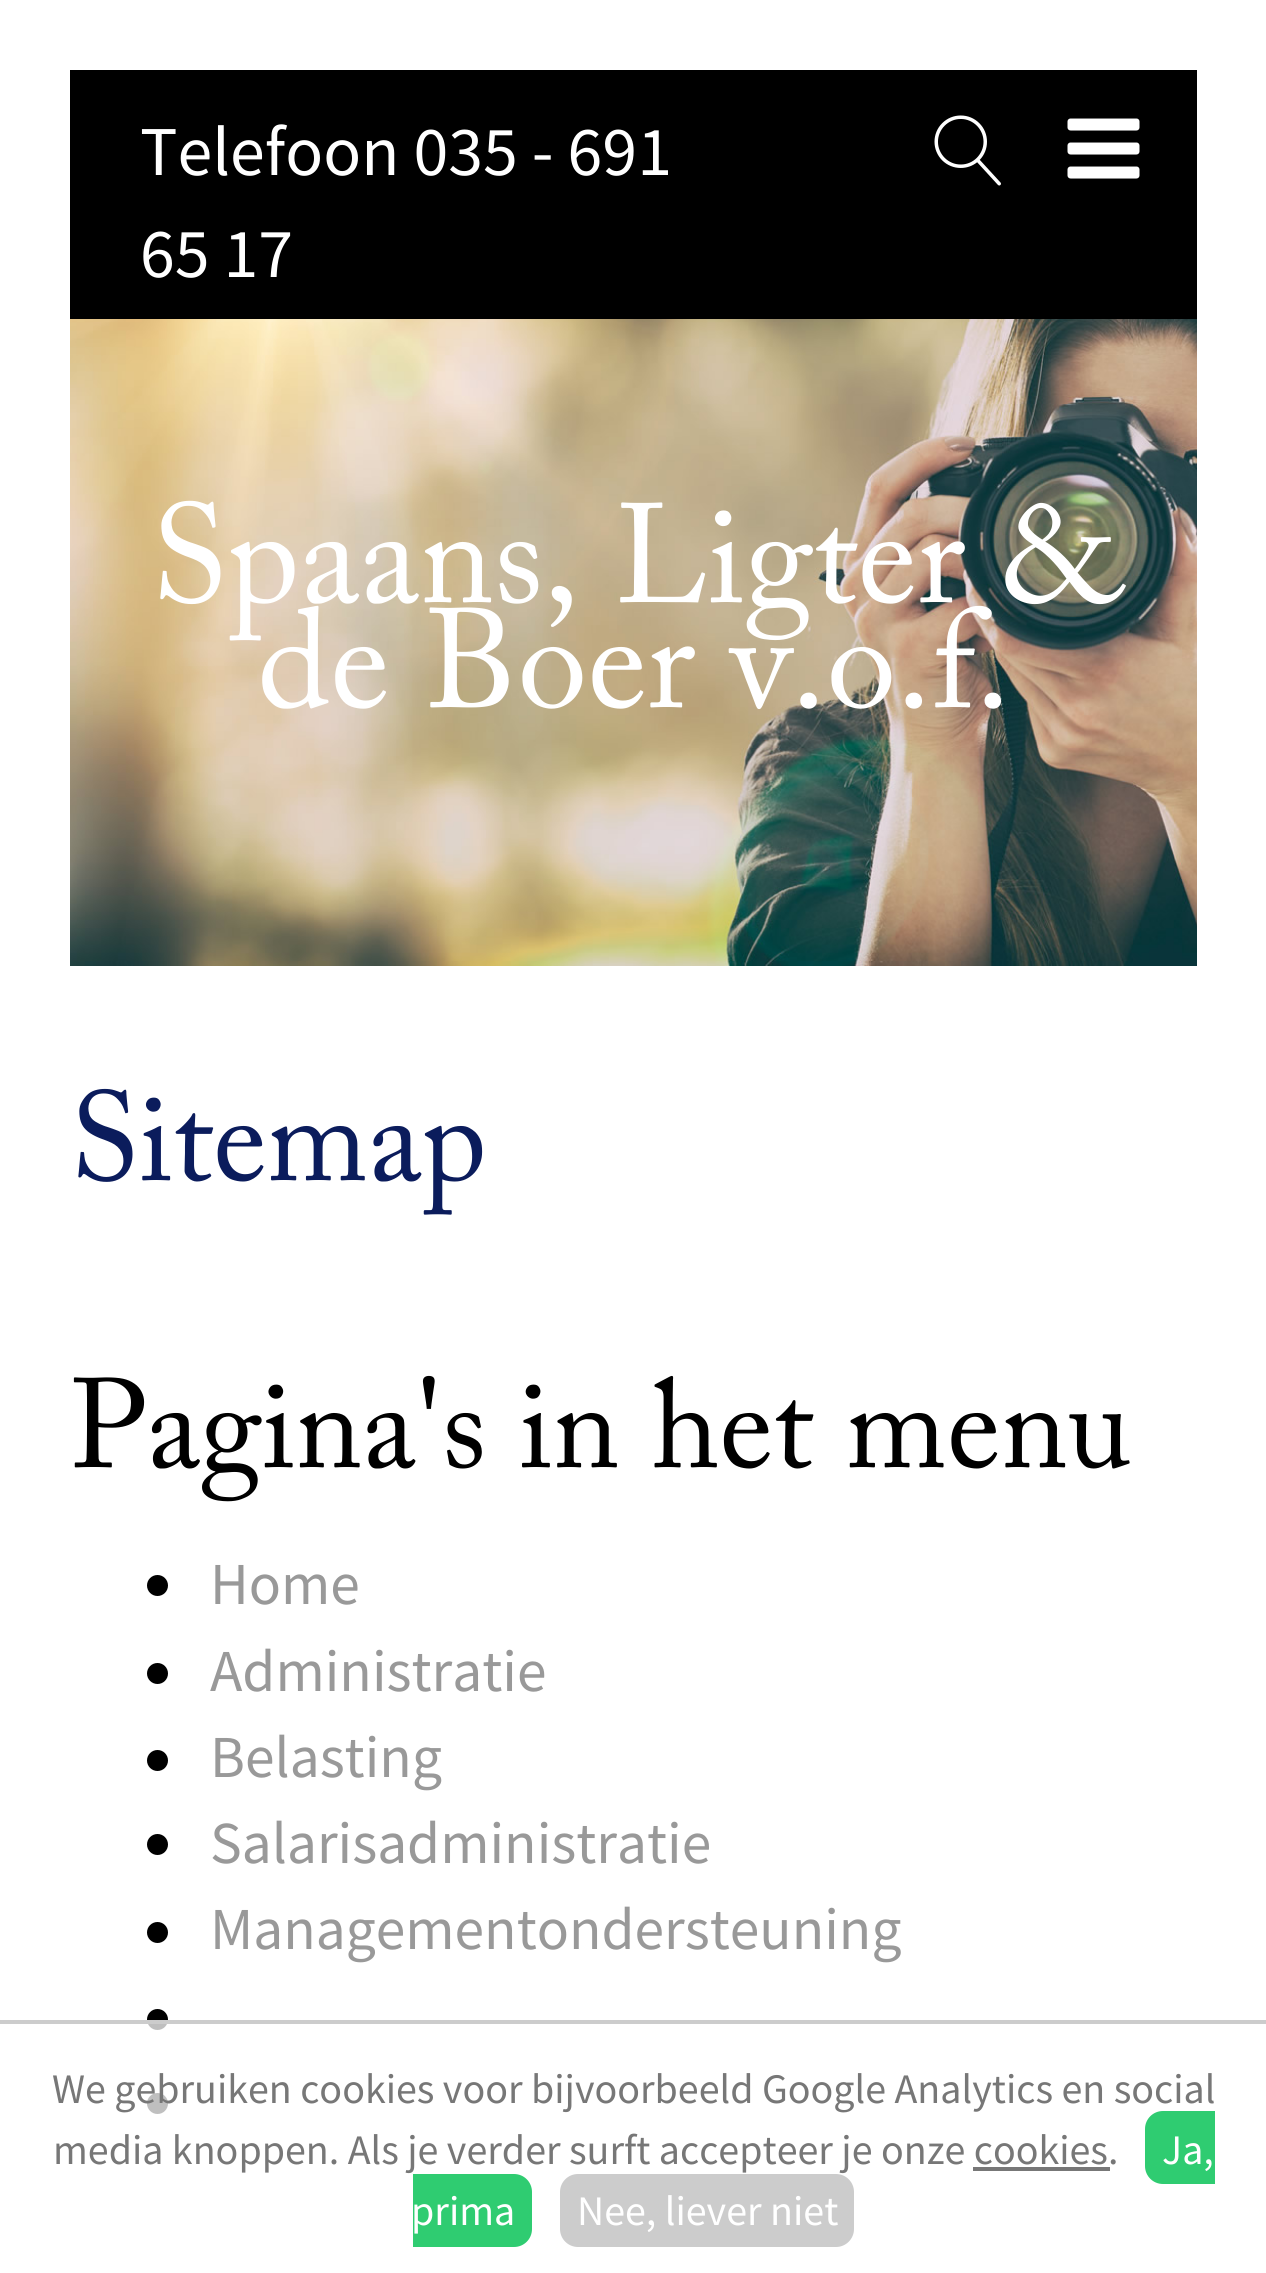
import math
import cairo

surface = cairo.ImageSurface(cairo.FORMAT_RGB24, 1266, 2273)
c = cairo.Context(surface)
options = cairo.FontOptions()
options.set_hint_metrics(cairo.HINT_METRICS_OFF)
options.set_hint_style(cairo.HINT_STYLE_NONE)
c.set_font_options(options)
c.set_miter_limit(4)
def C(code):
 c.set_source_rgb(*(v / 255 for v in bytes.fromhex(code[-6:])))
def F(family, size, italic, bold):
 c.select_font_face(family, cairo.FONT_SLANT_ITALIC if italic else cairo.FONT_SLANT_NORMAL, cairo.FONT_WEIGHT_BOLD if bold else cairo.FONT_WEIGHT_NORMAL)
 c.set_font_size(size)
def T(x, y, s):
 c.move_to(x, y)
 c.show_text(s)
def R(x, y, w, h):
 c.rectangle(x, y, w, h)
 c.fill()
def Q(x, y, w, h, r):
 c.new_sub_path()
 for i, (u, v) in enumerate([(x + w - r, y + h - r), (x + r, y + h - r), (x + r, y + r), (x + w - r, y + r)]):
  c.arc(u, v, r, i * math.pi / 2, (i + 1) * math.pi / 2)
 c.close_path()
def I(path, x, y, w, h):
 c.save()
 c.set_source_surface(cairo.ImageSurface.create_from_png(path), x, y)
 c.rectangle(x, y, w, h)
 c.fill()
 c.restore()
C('ffffff')
c.paint()
I('1.png',70,319,1127,647)
C('000000')
R(70,70,1127,249)
F('Source Sans Pro',70,0,0)
C('ffffff')
T(140,175,'Telefoon 035 - 691')
T(140,277,'65 17')
I('2.png',934,115,67,71)
I('3.png',1067,118,73,61)
F('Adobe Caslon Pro',140,0,0)
T(151,602,'Spaans, Ligter &')
T(257,707,'de Boer v.o.f.')
F('Adobe Caslon Pro',126,0,0)
C('0b1c5c')
T(70,1180,'Sitemap')
C('000000')
T(70,1467,'Pagina\'s in het menu')
c.new_path()
c.arc(157.5,1585.5,10.5,0,2 * math.pi)
c.fill()
F('Source Sans Pro',59.5,0,0)
C('999999')
T(210,1604,'Home')
C('000000')
c.new_path()
c.arc(157.5,1673.5,10.5,0,2 * math.pi)
c.fill()
C('999999')
T(210,1691,'Administratie')
C('000000')
c.new_path()
c.arc(157.5,1760.5,10.5,0,2 * math.pi)
c.fill()
C('999999')
T(210,1777,'Belasting')
C('000000')
c.new_path()
c.arc(157.5,1844.5,10.5,0,2 * math.pi)
c.fill()
C('999999')
T(210,1863,'Salarisadministratie')
C('000000')
c.new_path()
c.arc(157.5,1932.5,10.5,0,2 * math.pi)
c.fill()
C('999999')
T(210,1949,'Managementondersteuning')
C('000000')
c.new_path()
c.arc(157.5,2019.5,10.5,0,2 * math.pi)
c.fill()
c.arc(157.5,2103.5,10.5,0,2 * math.pi)
c.fill()
c.set_source_rgba(1,1,1,0.75)
R(147,2024,21,90)
C('cccccc')
R(0,2020,1266,4)
F('Source Sans Pro',42,0,0)
C('777777')
T(52,2103,'We gebruiken cookies voor bijvoorbeeld Google Analytics en social')
T(53,2164,'media knoppen. Als je verder surft accepteer je onze cookies.')
C('2fcc71')
c.new_path()
c.move_to(1163,2111)
c.line_to(1215,2111)
c.line_to(1215,2184)
c.line_to(1163,2184)
c.curve_to(1153,2184,1145,2176,1145,2166)
c.line_to(1145,2129)
c.curve_to(1145,2119,1153,2111,1163,2111)
c.close_path()
c.fill()
C('ffffff')
T(1162,2164,'Ja,')
C('777777')
R(973,2167,137,4)
C('2fcc71')
c.new_path()
c.move_to(413,2174)
c.line_to(514,2174)
c.curve_to(524,2174,532,2182,532,2192)
c.line_to(532,2229)
c.curve_to(532,2239,524,2247,514,2247)
c.line_to(413,2247)
c.close_path()
c.fill()
C('ffffff')
T(411,2225,'prima')
C('cccccc')
Q(560,2174,294,73,18)
c.fill()
C('ffffff')
T(577,2225,'Nee, liever niet')
surface.write_to_png('o.png')
